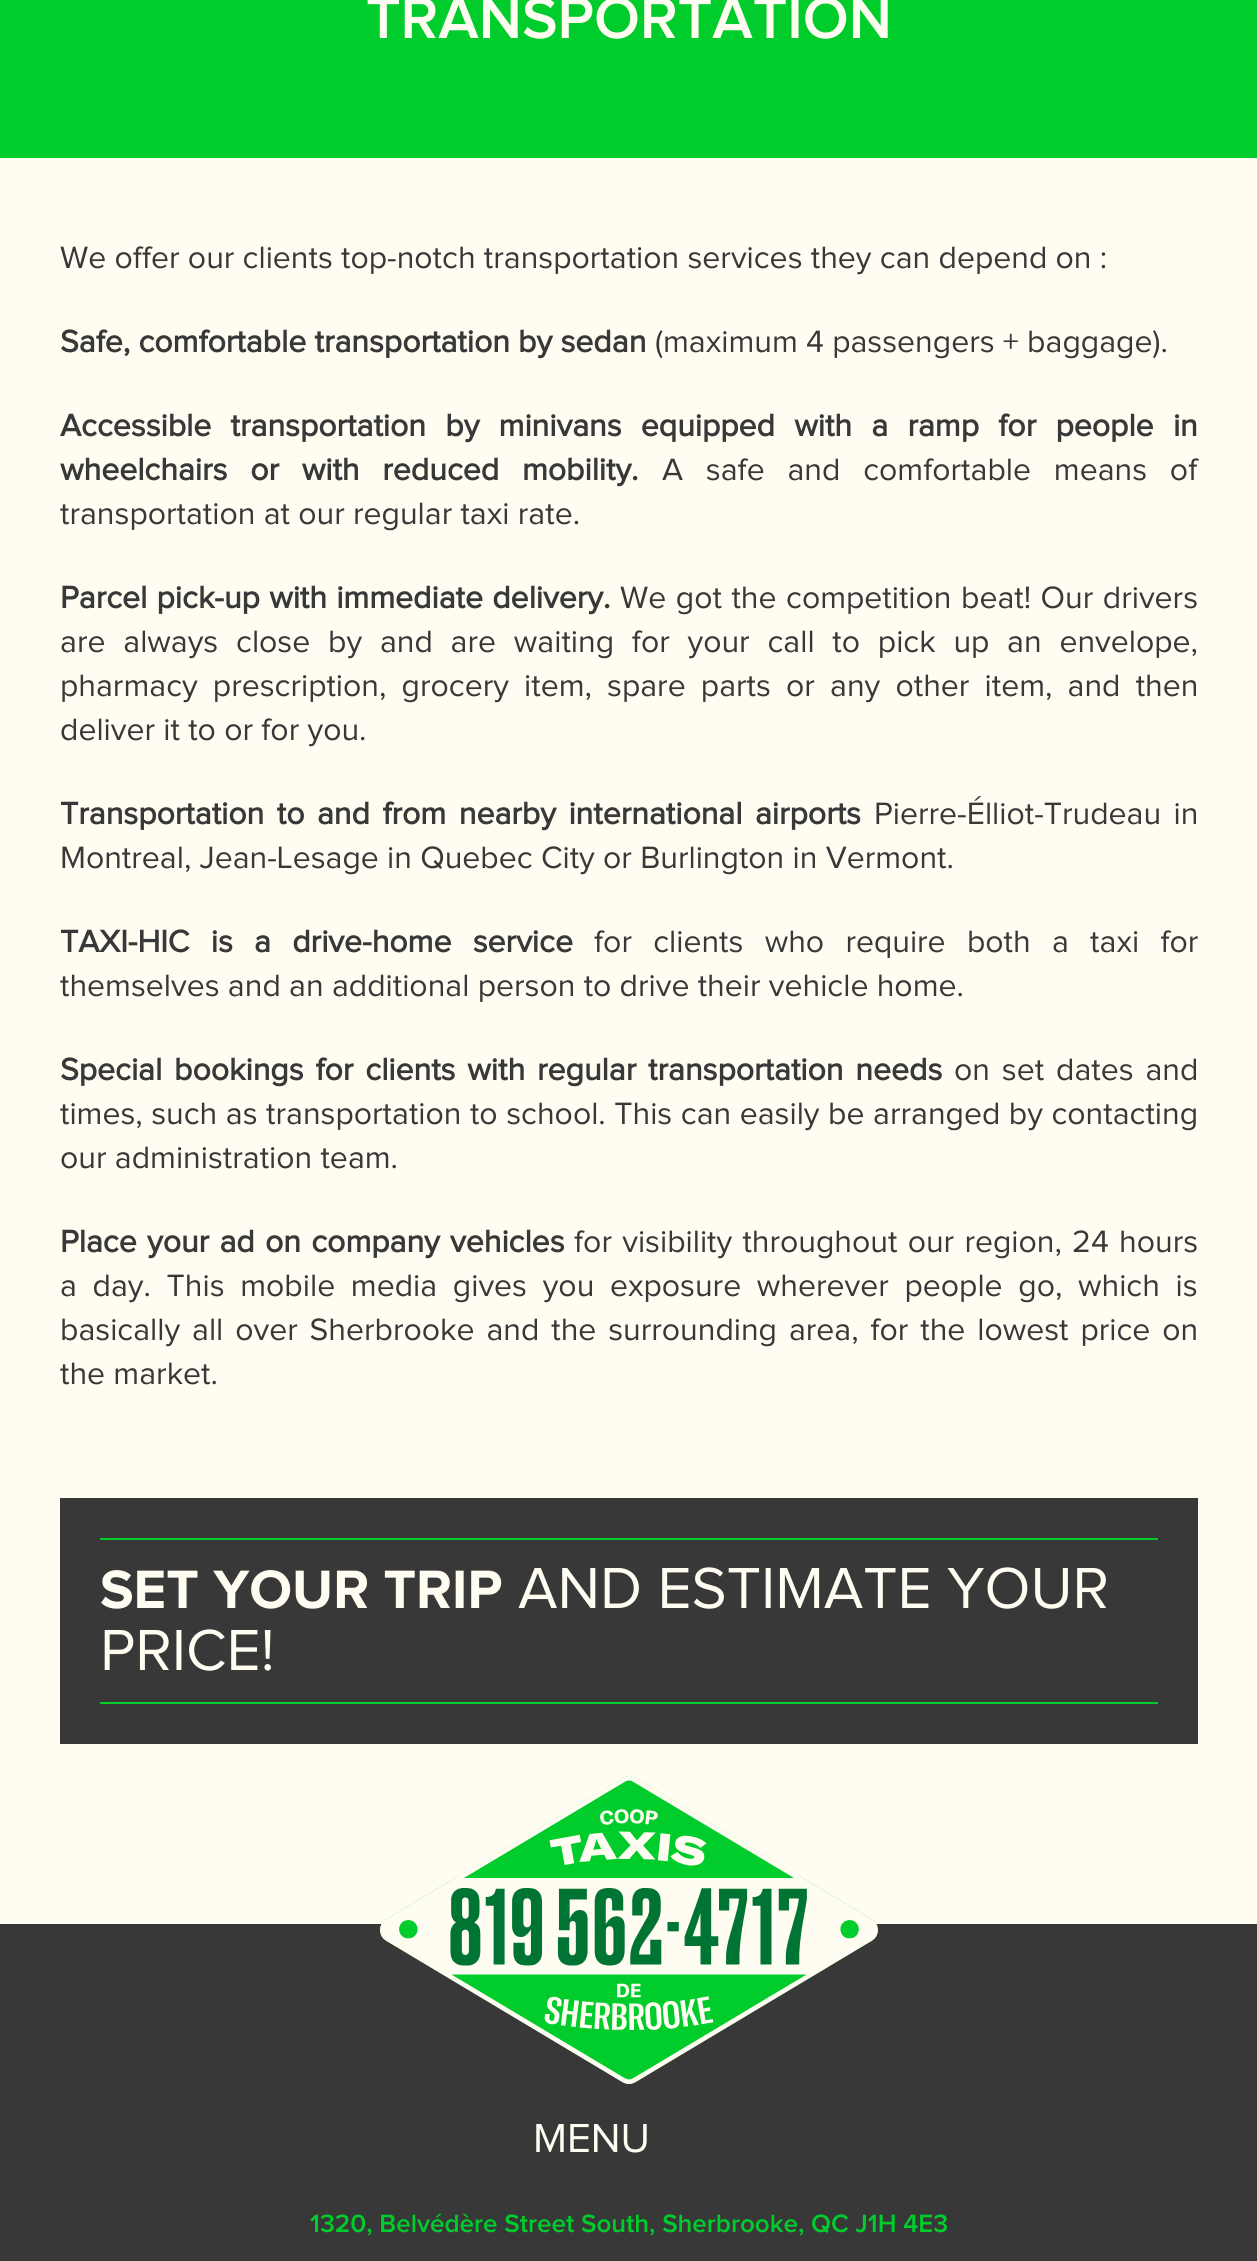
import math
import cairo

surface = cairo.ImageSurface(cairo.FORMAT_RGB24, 1257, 2261)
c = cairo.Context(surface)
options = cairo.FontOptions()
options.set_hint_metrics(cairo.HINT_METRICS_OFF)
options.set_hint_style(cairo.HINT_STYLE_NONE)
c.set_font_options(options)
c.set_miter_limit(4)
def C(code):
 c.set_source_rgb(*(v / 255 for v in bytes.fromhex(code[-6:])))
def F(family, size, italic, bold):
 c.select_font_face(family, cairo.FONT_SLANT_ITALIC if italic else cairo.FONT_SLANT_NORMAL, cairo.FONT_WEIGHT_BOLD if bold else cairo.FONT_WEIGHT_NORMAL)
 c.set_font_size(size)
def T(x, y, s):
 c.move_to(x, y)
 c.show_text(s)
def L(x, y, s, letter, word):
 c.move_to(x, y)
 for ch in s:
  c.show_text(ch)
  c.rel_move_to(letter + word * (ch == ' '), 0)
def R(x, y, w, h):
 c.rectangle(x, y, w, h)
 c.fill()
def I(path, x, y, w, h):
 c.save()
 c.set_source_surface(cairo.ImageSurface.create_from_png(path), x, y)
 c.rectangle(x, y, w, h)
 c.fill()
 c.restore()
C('00cc2c')
c.paint()
F('Proxima Nova SemiBold',60,0,0)
C('fffcf2')
T(366,38,'TRANSPORTATION')
R(0,158,1257,1766)
F('Proxima Nova',32,0,0)
C('383838')
T(60,268,'We offer our clients top-notch transportation services they can depend on :')
F('Proxima Nova',32,0,1)
T(60,352,'Safe, comfortable transportation by sedan')
F('Proxima Nova',32,0,0)
T(655,352,'(maximum 4 passengers + baggage).')
F('Proxima Nova',32,0,1)
L(60,436,'Accessible transportation by minivans equipped with a ramp for people in',0,11)
L(60,480,'wheelchairs or with reduced mobility.',0,14.5)
F('Proxima Nova',32,0,0)
L(662,480,'A safe and comfortable means of',0,14.5)
T(60,524,'transportation at our regular taxi rate.')
F('Proxima Nova',32,0,1)
L(60,608,'Parcel pick-up with immediate delivery.',0,1)
F('Proxima Nova',32,0,0)
L(620,608,'We got the competition beat! Our drivers',0,1.25)
L(60,652,'are always close by and are waiting for your call to pick up an envelope,',0,9.5)
L(60,696,'pharmacy prescription, grocery item, spare parts or any other item, and then',0,6.9)
T(60,740,'deliver it to or for you.')
F('Proxima Nova',32,0,1)
L(60,824,'Transportation to and from nearby international airports',0,4.25)
F('Proxima Nova',32,0,0)
L(874,824,'Pierre-Élliot-Trudeau in',0,4.25)
T(60,868,'Montreal, Jean-Lesage in Quebec City or Burlington in Vermont.')
F('Proxima Nova',32,0,1)
L(60,952,'TAXI-HIC is a drive-home service',0,13)
F('Proxima Nova',32,0,0)
L(594,952,'for clients who require both a taxi for',0,13)
T(60,996,'themselves and an additional person to drive their vehicle home.')
F('Proxima Nova',32,0,1)
L(60,1080,'Special bookings for clients with regular transportation needs',0,3.6)
F('Proxima Nova',32,0,0)
L(954,1080,'on set dates and',0,3.6)
L(60,1124,'times, such as transportation to school. This can easily be arranged by contacting',0,.25)
T(60,1168,'our administration team.')
F('Proxima Nova',32,0,1)
L(60,1252,'Place your ad on company vehicles',0,2)
F('Proxima Nova',32,0,0)
L(574,1252,'for visibility throughout our region, 24 hours',0,2)
L(60,1296,'a day. This mobile media gives you exposure wherever people go, which is',0,7.4)
L(60,1340,'basically all over Sherbrooke and the surrounding area, for the lowest price on',0,3.6)
T(60,1384,'the market.')
R(60,1498,1138,246)
C('00cc2c')
R(100,1538,1058,2)
R(100,1702,1058,2)
F('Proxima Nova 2',56,0,1)
C('fffcf2')
T(100,1608,'SET YOUR TRIP')
F('Proxima Nova',60,0,0)
T(518,1608,'AND ESTIMATE YOUR')
T(100,1670,'PRICE!')
C('383838')
R(0,1924,1257,337)
I('1.png',380,1776,498,308)
F('Proxima Nova',42,0,0)
C('fffcf2')
T(533,2152,'MENU')
F('Proxima Nova SemiBold',26,0,0)
C('00cc2c')
T(310,2232,'1320, Belvédère Street South, Sherbrooke, QC J1H 4E3')
surface.write_to_png('o.png')
